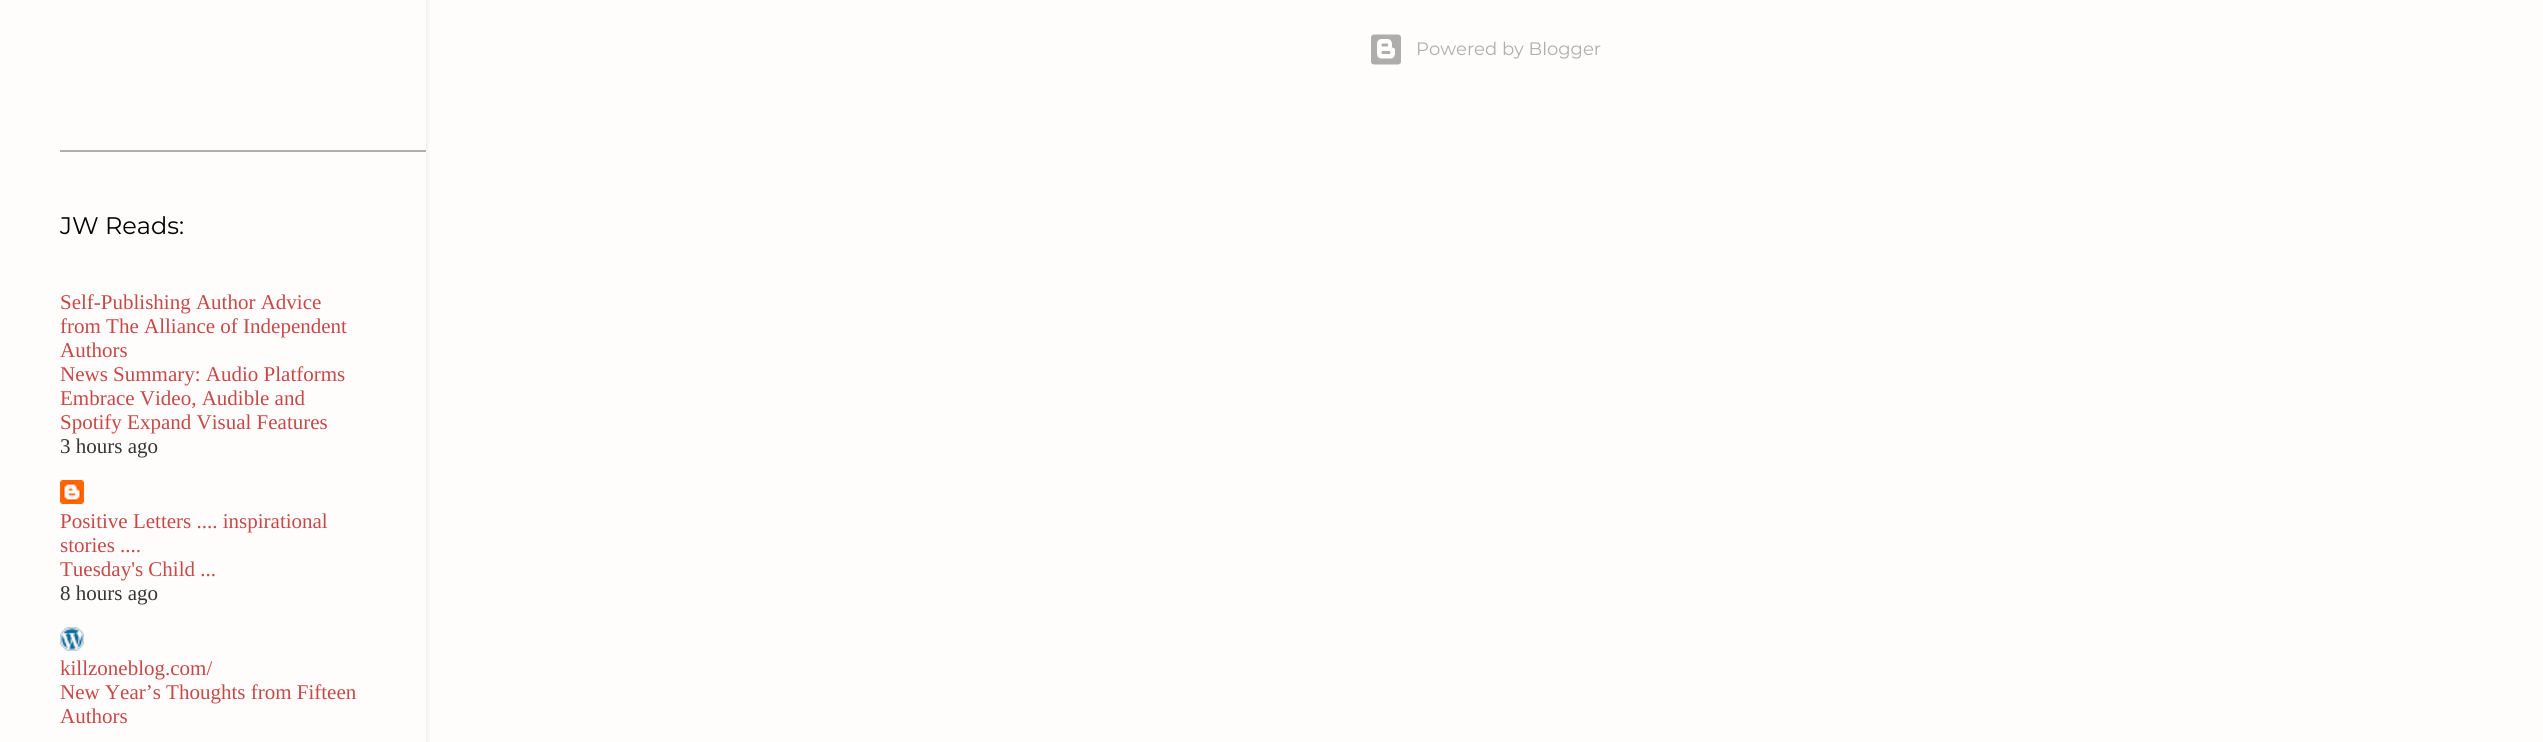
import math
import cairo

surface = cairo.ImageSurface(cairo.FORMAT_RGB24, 2543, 742)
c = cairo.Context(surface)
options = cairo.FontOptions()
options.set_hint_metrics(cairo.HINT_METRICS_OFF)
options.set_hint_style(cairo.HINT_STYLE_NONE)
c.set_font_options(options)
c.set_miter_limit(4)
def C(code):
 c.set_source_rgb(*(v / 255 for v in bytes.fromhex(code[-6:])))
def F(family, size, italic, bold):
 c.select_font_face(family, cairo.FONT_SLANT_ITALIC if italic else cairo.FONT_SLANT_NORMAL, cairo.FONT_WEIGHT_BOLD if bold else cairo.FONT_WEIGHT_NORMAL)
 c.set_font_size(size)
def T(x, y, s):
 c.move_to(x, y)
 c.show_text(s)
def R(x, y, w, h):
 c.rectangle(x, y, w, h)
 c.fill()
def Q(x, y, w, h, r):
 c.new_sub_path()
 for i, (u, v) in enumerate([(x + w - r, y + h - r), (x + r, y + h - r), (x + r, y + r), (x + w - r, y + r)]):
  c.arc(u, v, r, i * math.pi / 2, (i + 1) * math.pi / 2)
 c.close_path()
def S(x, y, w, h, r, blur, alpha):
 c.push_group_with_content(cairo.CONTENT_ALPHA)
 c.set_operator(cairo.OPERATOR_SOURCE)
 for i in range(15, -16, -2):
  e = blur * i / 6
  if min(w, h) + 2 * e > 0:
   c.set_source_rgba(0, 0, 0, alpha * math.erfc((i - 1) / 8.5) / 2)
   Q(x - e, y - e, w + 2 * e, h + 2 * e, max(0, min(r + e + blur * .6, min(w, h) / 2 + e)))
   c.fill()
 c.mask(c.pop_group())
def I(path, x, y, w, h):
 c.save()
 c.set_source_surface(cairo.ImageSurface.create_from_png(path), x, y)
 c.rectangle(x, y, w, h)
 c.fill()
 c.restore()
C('fefdfb')
c.paint()
I('1.png',1371,34,30,31)
F('Montserrat',18,0,0)
C('aeaead')
T(1416,55,'Powered by Blogger')
c.save()
c.rectangle(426,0,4,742)
c.clip()
C('6a6a6a')
S(2,-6,426,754,0,2,.1)
c.restore()
R(60,150,366,2)
F('Montserrat',24,0,0)
C('000000')
T(60,234,'JW Reads:')
F('Liberation Serif',21,0,0)
C('c74848')
T(60,309,'Self-Publishing Author Advice')
T(60,333,'from The Alliance of Independent')
T(60,357,'Authors')
T(60,381,'News Summary: Audio Platforms')
T(60,405,'Embrace Video, Audible and')
T(60,429,'Spotify Expand Visual Features')
C('353535')
T(60,453,'3 hours ago')
I('2.png',60,480,24,24)
C('c74848')
T(60,528,'Positive Letters .... inspirational')
T(60,552,'stories ....')
T(60,576,'Tuesday\'s Child ...')
C('353535')
T(60,600,'8 hours ago')
I('3.png',60,627,24,24)
C('c74848')
T(60,675,'killzoneblog.com/')
T(60,699,'New Year’s Thoughts from Fifteen')
T(60,723,'Authors')
surface.write_to_png('o.png')
